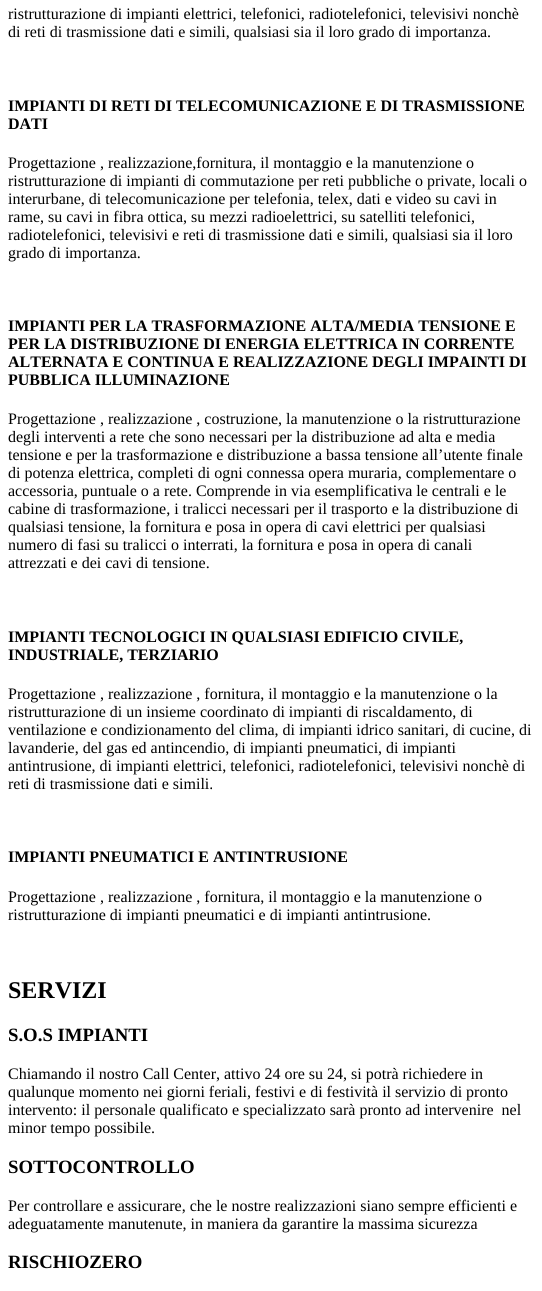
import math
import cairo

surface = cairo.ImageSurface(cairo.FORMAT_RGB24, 542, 1291)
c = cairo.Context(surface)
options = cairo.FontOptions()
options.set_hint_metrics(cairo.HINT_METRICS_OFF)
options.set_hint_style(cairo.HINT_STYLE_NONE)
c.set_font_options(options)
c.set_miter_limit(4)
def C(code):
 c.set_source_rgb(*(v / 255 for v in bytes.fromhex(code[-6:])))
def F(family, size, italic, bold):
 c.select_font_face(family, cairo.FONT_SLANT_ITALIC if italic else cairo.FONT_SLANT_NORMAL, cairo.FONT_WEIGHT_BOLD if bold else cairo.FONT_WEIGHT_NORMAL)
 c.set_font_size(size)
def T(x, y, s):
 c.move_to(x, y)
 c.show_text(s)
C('ffffff')
c.paint()
F('Liberation Serif',16,0,0)
C('000000')
T(8,19,'ristrutturazione di impianti elettrici, telefonici, radiotelefonici, televisivi nonchè')
T(8,37,'di reti di trasmissione dati e simili, qualsiasi sia il loro grado di importanza.')
F('Liberation Serif',16,0,1)
T(8,111,'IMPIANTI DI RETI DI TELECOMUNICAZIONE E DI TRASMISSIONE')
T(8,129,'DATI')
F('Liberation Serif',16,0,0)
T(8,168,'Progettazione , realizzazione,fornitura, il montaggio e la manutenzione o')
T(8,186,'ristrutturazione di impianti di commutazione per reti pubbliche o private, locali o')
T(8,204,'interurbane, di telecomunicazione per telefonia, telex, dati e video su cavi in')
T(8,222,'rame, su cavi in fibra ottica, su mezzi radioelettrici, su satelliti telefonici,')
T(8,240,'radiotelefonici, televisivi e reti di trasmissione dati e simili, qualsiasi sia il loro')
T(8,258,'grado di importanza.')
F('Liberation Serif',16,0,1)
T(8,331,'IMPIANTI PER LA TRASFORMAZIONE ALTA/MEDIA TENSIONE E')
T(8,349,'PER LA DISTRIBUZIONE DI ENERGIA ELETTRICA IN CORRENTE')
T(8,367,'ALTERNATA E CONTINUA E REALIZZAZIONE DEGLI IMPAINTI DI')
T(8,385,'PUBBLICA ILLUMINAZIONE')
F('Liberation Serif',16,0,0)
T(8,424,'Progettazione , realizzazione , costruzione, la manutenzione o la ristrutturazione')
T(8,442,'degli interventi a rete che sono necessari per la distribuzione ad alta e media')
T(8,460,'tensione e per la trasformazione e distribuzione a bassa tensione all’utente finale')
T(8,478,'di potenza elettrica, completi di ogni connessa opera muraria, complementare o')
T(8,496,'accessoria, puntuale o a rete. Comprende in via esemplificativa le centrali e le')
T(8,514,'cabine di trasformazione, i tralicci necessari per il trasporto e la distribuzione di')
T(8,532,'qualsiasi tensione, la fornitura e posa in opera di cavi elettrici per qualsiasi')
T(8,550,'numero di fasi su tralicci o interrati, la fornitura e posa in opera di canali')
T(8,568,'attrezzati e dei cavi di tensione.')
F('Liberation Serif',16,0,1)
T(8,642,'IMPIANTI TECNOLOGICI IN QUALSIASI EDIFICIO CIVILE,')
T(8,660,'INDUSTRIALE, TERZIARIO')
F('Liberation Serif',16,0,0)
T(8,699,'Progettazione , realizzazione , fornitura, il montaggio e la manutenzione o la')
T(8,717,'ristrutturazione di un insieme coordinato di impianti di riscaldamento, di')
T(8,735,'ventilazione e condizionamento del clima, di impianti idrico sanitari, di cucine, di')
T(8,753,'lavanderie, del gas ed antincendio, di impianti pneumatici, di impianti')
T(8,771,'antintrusione, di impianti elettrici, telefonici, radiotelefonici, televisivi nonchè di')
T(8,789,'reti di trasmissione dati e simili.')
F('Liberation Serif',16,0,1)
T(8,862,'IMPIANTI PNEUMATICI E ANTINTRUSIONE')
F('Liberation Serif',16,0,0)
T(8,902,'Progettazione , realizzazione , fornitura, il montaggio e la manutenzione o')
T(8,920,'ristrutturazione di impianti pneumatici e di impianti antintrusione.')
F('Liberation Serif',24,0,1)
T(8,998,'SERVIZI')
F('Liberation Serif',18.75,0,1)
T(8,1041,'S.O.S IMPIANTI')
F('Liberation Serif',16,0,0)
T(8,1079,'Chiamando il nostro Call Center, attivo 24 ore su 24, si potrà richiedere in')
T(8,1097,'qualunque momento nei giorni feriali, festivi e di festività il servizio di pronto')
T(8,1115,'intervento: il personale qualificato e specializzato sarà pronto ad intervenire  nel')
T(8,1133,'minor tempo possibile.')
F('Liberation Serif',18.75,0,1)
T(8,1173,'SOTTOCONTROLLO')
F('Liberation Serif',16,0,0)
T(8,1211,'Per controllare e assicurare, che le nostre realizzazioni siano sempre efficienti e')
T(8,1229,'adeguatamente manutenute, in maniera da garantire la massima sicurezza')
F('Liberation Serif',18.75,0,1)
T(8,1268,'RISCHIOZERO')
surface.write_to_png('o.png')
